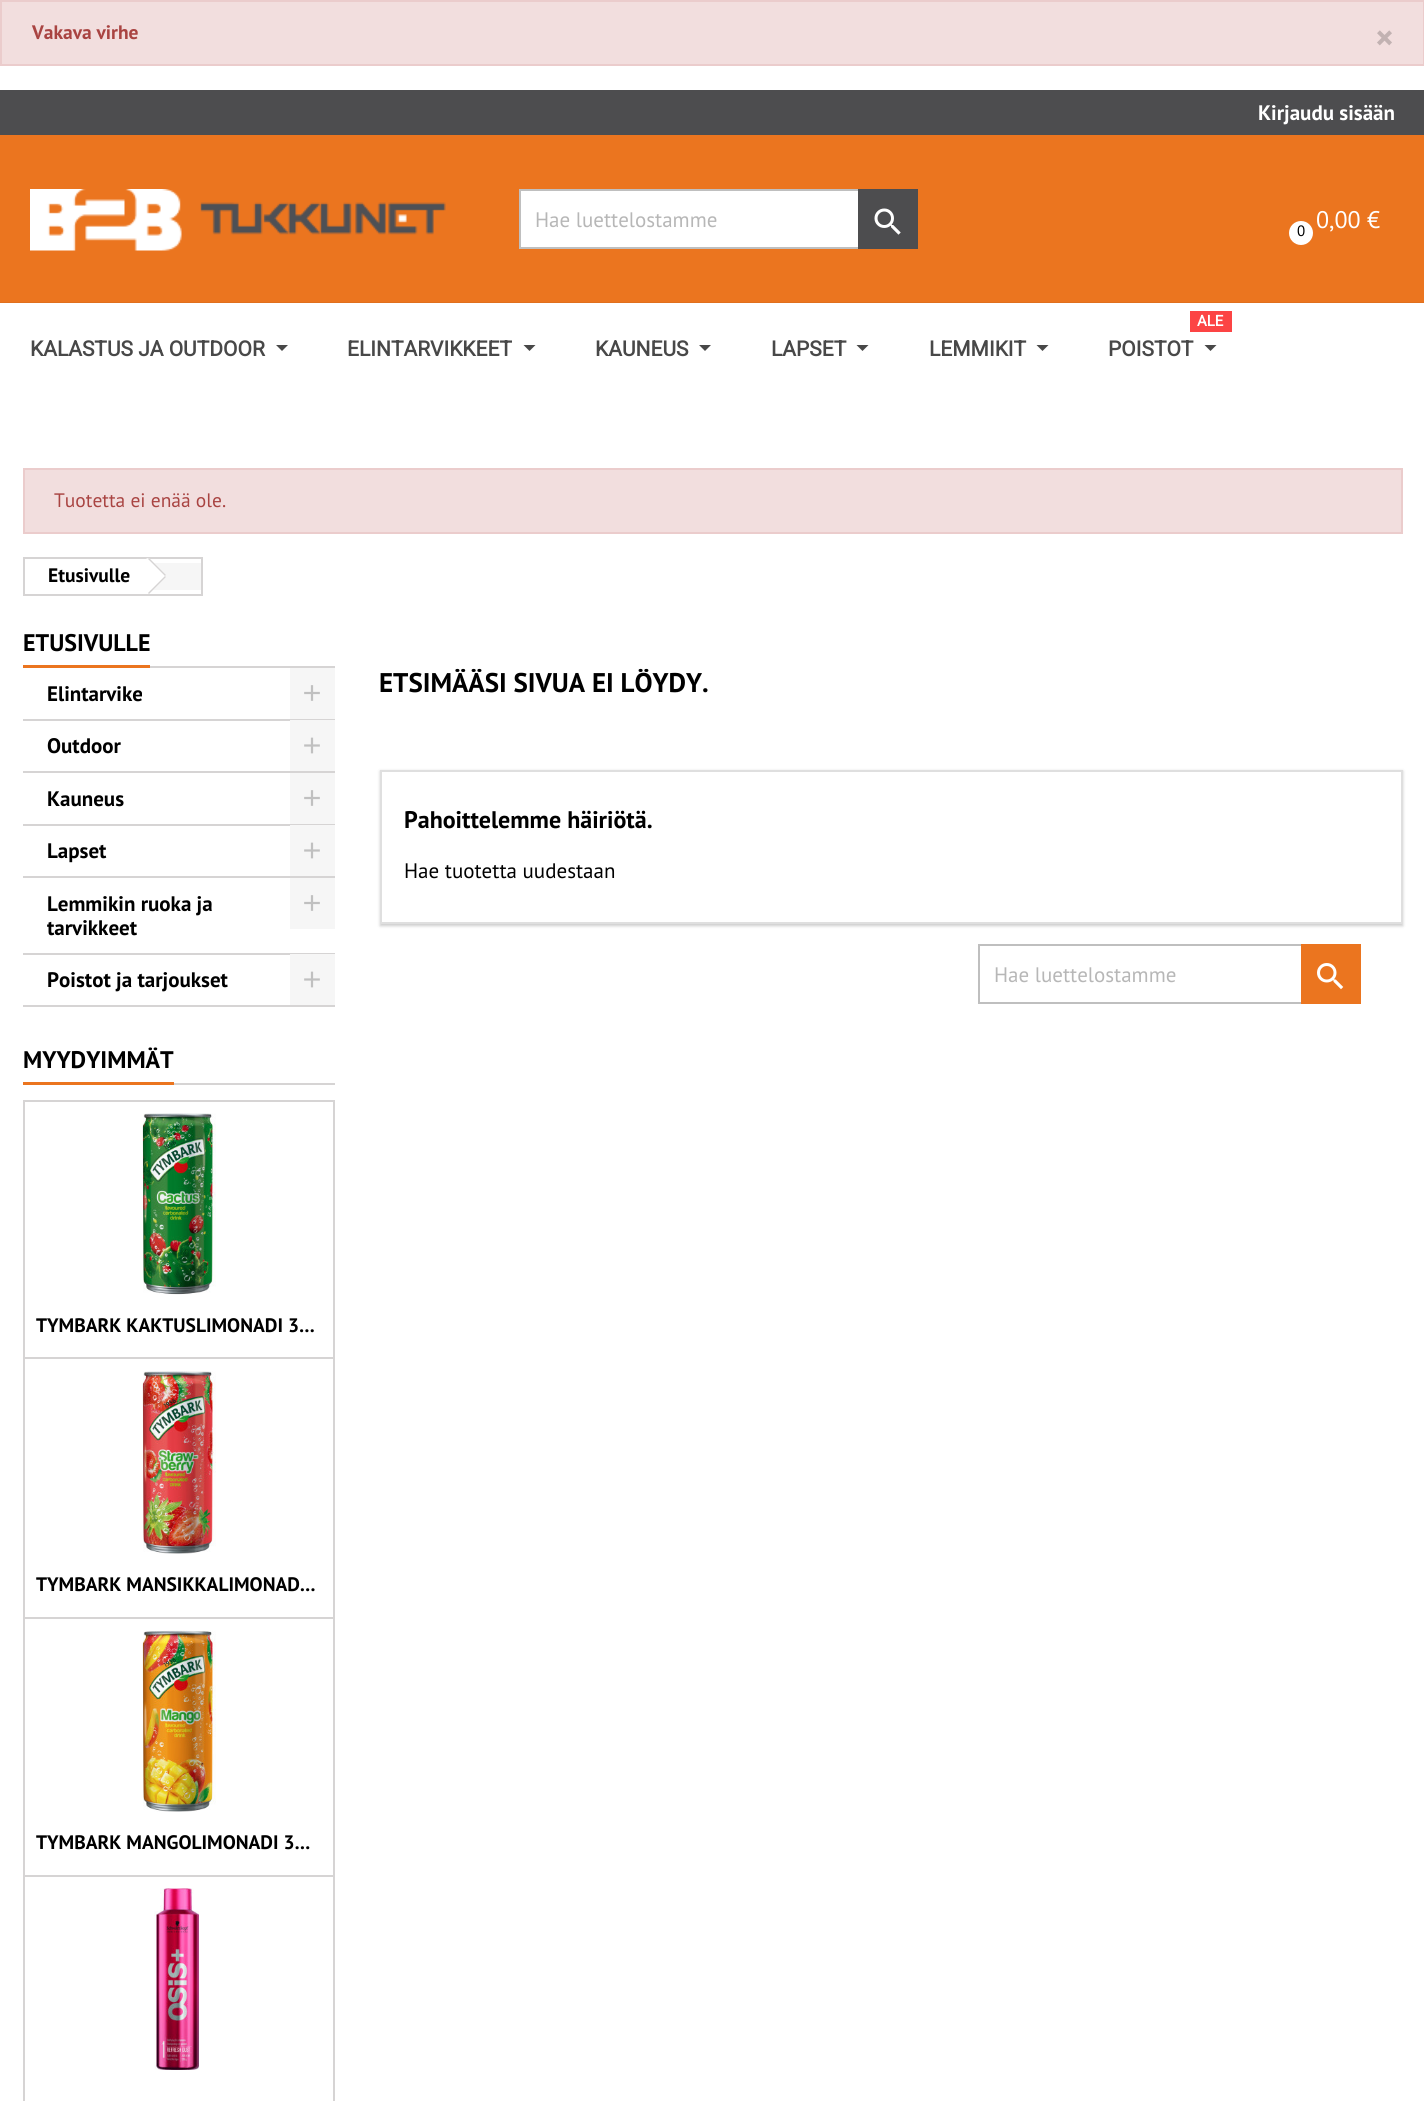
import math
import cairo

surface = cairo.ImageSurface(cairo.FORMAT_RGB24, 1424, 2101)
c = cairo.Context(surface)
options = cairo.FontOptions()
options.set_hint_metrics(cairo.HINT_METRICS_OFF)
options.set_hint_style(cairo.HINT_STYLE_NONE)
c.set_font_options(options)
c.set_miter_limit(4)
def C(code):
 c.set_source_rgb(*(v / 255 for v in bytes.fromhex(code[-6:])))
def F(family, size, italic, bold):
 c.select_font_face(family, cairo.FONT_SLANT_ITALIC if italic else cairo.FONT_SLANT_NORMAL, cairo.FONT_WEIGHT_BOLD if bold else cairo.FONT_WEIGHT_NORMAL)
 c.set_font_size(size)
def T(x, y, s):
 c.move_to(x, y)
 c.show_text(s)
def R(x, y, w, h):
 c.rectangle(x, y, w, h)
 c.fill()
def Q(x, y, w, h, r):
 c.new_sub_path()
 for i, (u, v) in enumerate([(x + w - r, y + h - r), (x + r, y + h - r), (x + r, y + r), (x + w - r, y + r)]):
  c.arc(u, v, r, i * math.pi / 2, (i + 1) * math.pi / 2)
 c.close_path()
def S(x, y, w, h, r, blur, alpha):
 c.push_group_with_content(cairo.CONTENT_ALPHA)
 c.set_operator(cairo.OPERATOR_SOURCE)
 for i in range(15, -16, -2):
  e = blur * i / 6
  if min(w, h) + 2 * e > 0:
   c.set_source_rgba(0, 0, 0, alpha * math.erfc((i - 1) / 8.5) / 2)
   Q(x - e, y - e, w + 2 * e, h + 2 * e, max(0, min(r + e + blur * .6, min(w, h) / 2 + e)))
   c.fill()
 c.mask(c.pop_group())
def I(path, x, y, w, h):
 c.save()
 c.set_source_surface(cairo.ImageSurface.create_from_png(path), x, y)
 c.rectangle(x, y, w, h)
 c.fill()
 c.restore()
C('ffffff')
c.paint()
C('f2dede')
c.rectangle(1,1,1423,64)
c.fill_preserve()
C('ebcccc')
c.stroke()
F('PT Sans',19.5,0,1)
C('a94442')
T(32,39,'Vakava virhe')
F('PT Sans',36,0,1)
C('c2b2b2')
T(1375,50,'×')
C('4d4d4f')
R(0,90,1424,45)
F('PT Sans',21,0,1)
C('ffffff')
T(1258,120,'Kirjaudu sisään')
C('eb751f')
R(0,135,1424,167)
C('e0701e')
R(0,302,1424,1)
I('1.png',30,189,416,62)
C('ffffff')
R(521,191,337,56)
c.rectangle(520,190,381,58)
C('bfbfbf')
c.stroke()
F('PT Sans',21,0,0)
C('b7b7b7')
T(535,227,'Hae luettelostamme')
C('4d4d4f')
R(858,189,60,60)
I('2.png',874,208,27,27)
C('ffffff')
c.arc(1301,233,12,0,2 * math.pi)
c.fill()
F('PT Sans',15,0,0)
C('000000')
T(1297,236,'0')
F('PT Sans',24,0,0)
C('ffffff')
T(1316,228,'0,00 €')
F('Roboto',21,0,1)
C('484848')
T(30,356,'KALASTUS JA OUTDOOR')
c.new_path()
c.move_to(276,345)
c.line_to(288,345)
c.line_to(282,351)
c.close_path()
c.fill()
T(347,356,'ELINTARVIKKEET')
c.new_path()
c.move_to(523.5,345)
c.line_to(535.5,345)
c.line_to(529.5,351)
c.close_path()
c.fill()
T(595,356,'KAUNEUS')
c.new_path()
c.move_to(699,345)
c.line_to(711,345)
c.line_to(705,351)
c.close_path()
c.fill()
T(771,356,'LAPSET')
c.new_path()
c.move_to(856.5,345)
c.line_to(868.5,345)
c.line_to(862.5,351)
c.close_path()
c.fill()
T(929,356,'LEMMIKIT')
c.new_path()
c.move_to(1036.5,345)
c.line_to(1048.5,345)
c.line_to(1042.5,351)
c.close_path()
c.fill()
C('fc4444')
R(1190,311,42,21)
F('Roboto',15,0,1)
C('ffffff')
T(1197,326,'ALE')
F('Roboto',21,0,1)
C('484848')
T(1108,356,'POISTOT')
c.new_path()
c.move_to(1204.5,345)
c.line_to(1216.5,345)
c.line_to(1210.5,351)
c.close_path()
c.fill()
C('f2dede')
c.rectangle(24,469,1378,64)
c.fill_preserve()
C('ebcccc')
c.stroke()
F('PT Sans',19.5,0,0)
C('a94442')
T(54,507,'Tuotetta ei enää ole.')
c.rectangle(24,558,178,37)
C('d6d4d4')
c.stroke()
F('PT Sans',19.5,0,1)
C('000000')
T(48,582,'Etusivulle')
C('f6f6f6')
R(153,563,48,27)
C('ffffff')
c.new_path()
c.move_to(150,559)
c.line_to(165,574)
c.curve_to(166.5,575,166.5,577,165,578)
c.line_to(150,593)
c.curve_to(149,594,147,594,146,593)
c.line_to(131,578)
c.curve_to(130,577,130,575,131,574)
c.line_to(146,559)
c.curve_to(147,558,149,558,150,559)
c.close_path()
c.fill()
C('d6d4d4')
c.new_path()
c.move_to(149,558)
c.line_to(166,575)
c.line_to(165,576)
c.line_to(148,559)
c.close_path()
c.move_to(165,576)
c.line_to(166,577)
c.line_to(149,594)
c.line_to(148,593)
c.close_path()
c.fill()
R(150,666,185,2)
C('eb751f')
R(23,665,127,3)
F('PT Sans',24,0,1)
C('000000')
T(23,651,'ETUSIVULLE')
C('d6d4d4')
R(23,719,312,2)
F('PT Sans',21,0,1)
C('000000')
T(47,701,'Elintarvike')
C('f6f6f6')
R(290,668,45,51)
I('3.png',304,685,16,16)
C('d6d4d4')
R(23,771,312,2)
C('000000')
T(47,753,'Outdoor')
C('f6f6f6')
R(290,720,45,51)
I('4.png',304,737,16,17)
C('d6d4d4')
R(23,824,312,2)
C('000000')
T(47,806,'Kauneus')
C('f6f6f6')
R(290,773,45,51)
I('3.png',304,790,16,16)
C('d6d4d4')
R(23,876,312,2)
C('000000')
T(47,858,'Lapset')
C('f6f6f6')
R(290,825,45,51)
I('4.png',304,842,16,17)
C('d6d4d4')
R(23,953,312,2)
C('000000')
T(47,911,'Lemmikin ruoka ja')
T(47,935,'tarvikkeet')
C('f6f6f6')
R(290,878,45,51)
I('3.png',304,895,16,16)
C('d6d4d4')
R(23,1005,312,2)
C('000000')
T(47,987,'Poistot ja tarjoukset')
C('f6f6f6')
R(290,954,45,51)
I('4.png',304,971,16,17)
C('d6d4d4')
R(174,1083,161,2)
C('eb751f')
R(23,1082,151,3)
F('PT Sans',24,0,1)
C('000000')
T(23,1068,'MYYDYIMMÄT')
c.rectangle(24,1101,310,257)
C('d6d4d4')
c.stroke()
I('5.png',142,1113,74,182)
F('PT Sans',19.5,0,1)
C('000000')
T(36,1332,'TYMBARK KAKTUSLIMONADI 3…')
C('d6d4d4')
R(333,1359,2,742)
R(23,1617,312,2)
R(23,1359,2,260)
I('6.png',142,1371,74,183)
C('000000')
T(36,1591,'TYMBARK MANSIKKALIMONAD…')
C('d6d4d4')
R(23,1875,312,2)
R(23,1619,2,482)
I('7.png',142,1630,74,182)
C('000000')
T(36,1849,'TYMBARK MANGOLIMONADI 3…')
I('8.png',154,1888,45,182)
F('PT Sans',27,0,1)
T(379,692,'ETSIMÄÄSI SIVUA EI LÖYDY.')
C('000000')
S(380,771,1023,155,0,1.5,.2)
C('ffffff')
c.rectangle(381,771,1021,152)
c.fill_preserve()
C('dfdfdf')
c.stroke()
F('PT Sans',24,0,1)
C('000000')
T(404,828,'Pahoittelemme häiriötä.')
F('PT Sans',21,0,0)
T(404,878,'Hae tuotetta uudestaan')
c.rectangle(979,945,381,58)
C('bfbfbf')
c.stroke()
C('b7b7b7')
T(994,982,'Hae luettelostamme')
C('eb751f')
R(1301,944,60,60)
I('9.png',1317,963,27,27)
surface.write_to_png('o.png')
